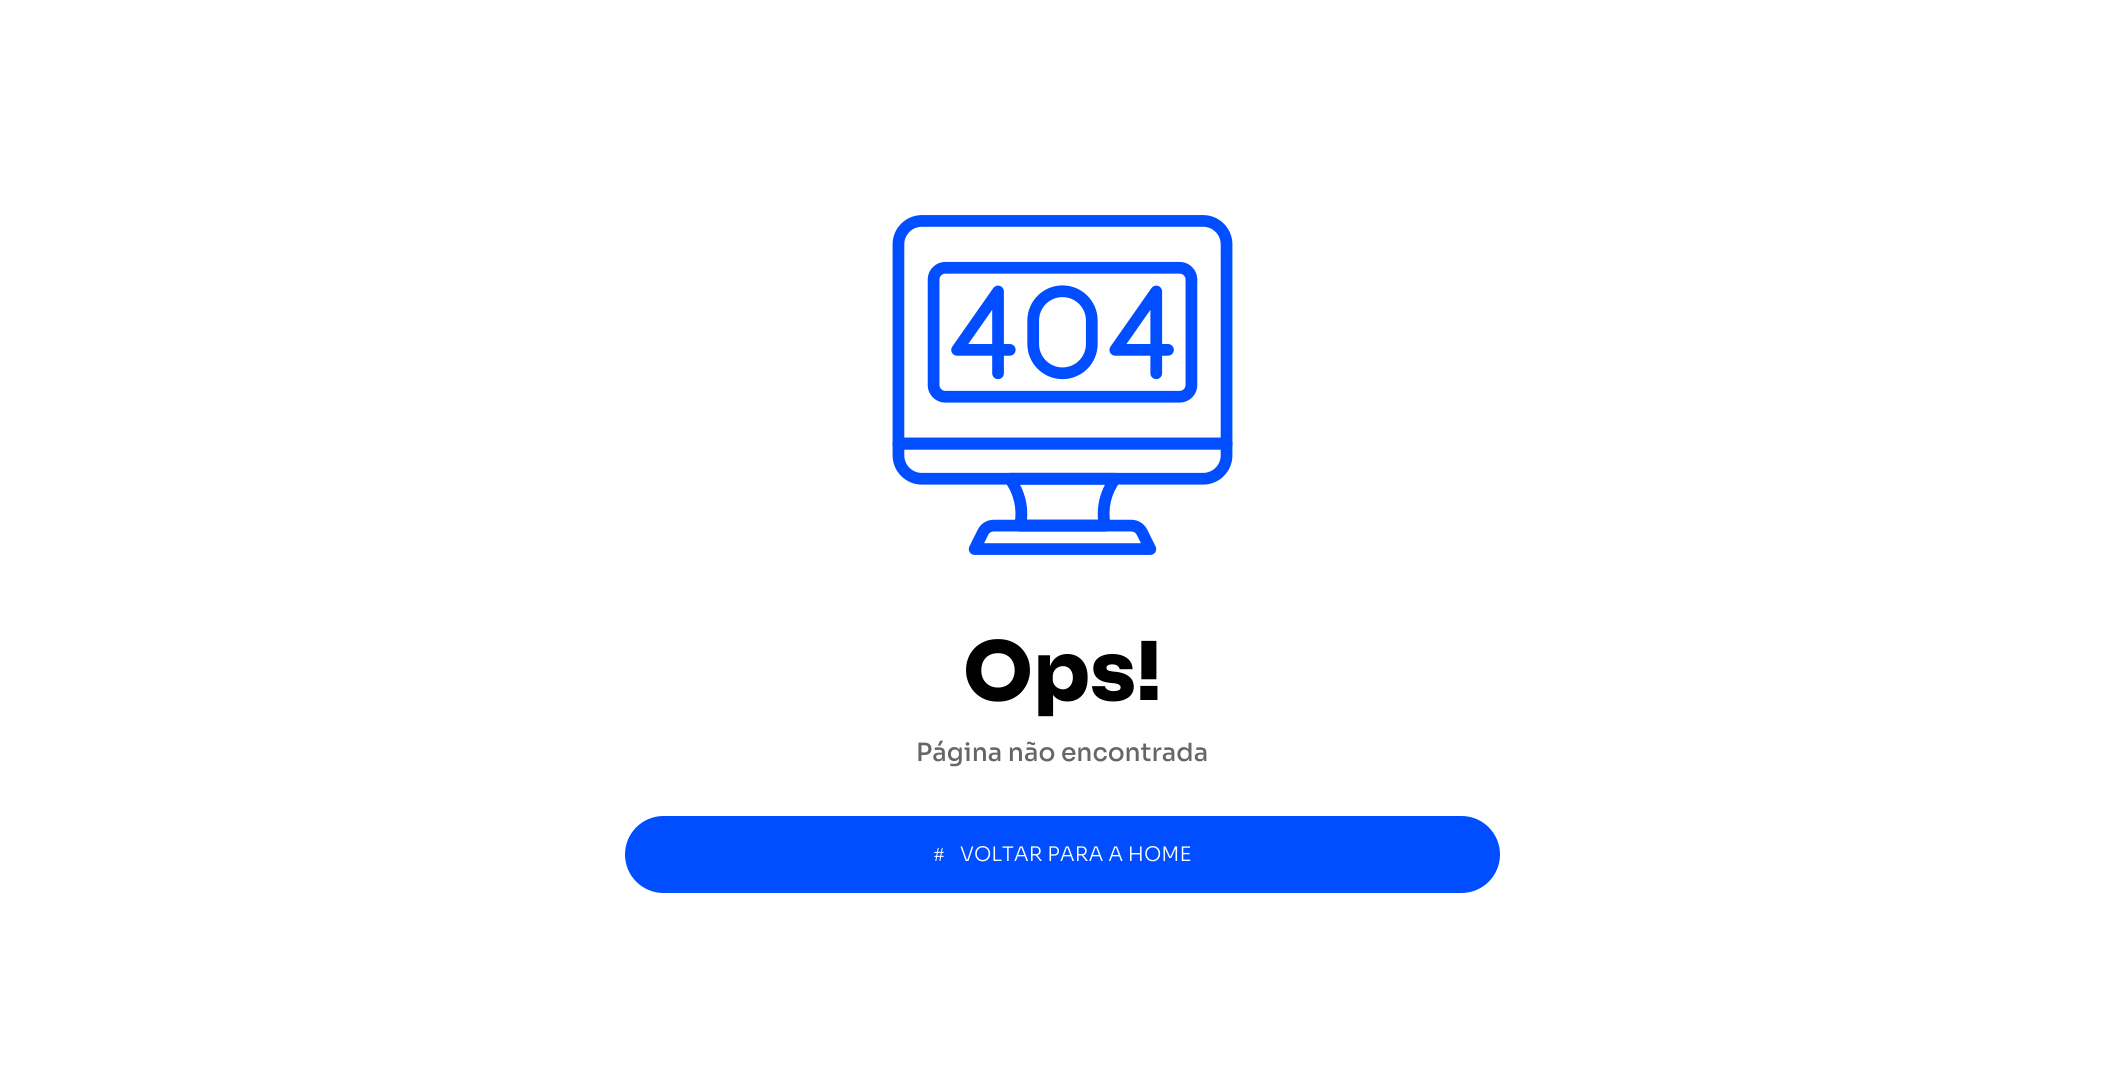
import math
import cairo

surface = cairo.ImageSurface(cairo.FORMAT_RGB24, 2125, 1090)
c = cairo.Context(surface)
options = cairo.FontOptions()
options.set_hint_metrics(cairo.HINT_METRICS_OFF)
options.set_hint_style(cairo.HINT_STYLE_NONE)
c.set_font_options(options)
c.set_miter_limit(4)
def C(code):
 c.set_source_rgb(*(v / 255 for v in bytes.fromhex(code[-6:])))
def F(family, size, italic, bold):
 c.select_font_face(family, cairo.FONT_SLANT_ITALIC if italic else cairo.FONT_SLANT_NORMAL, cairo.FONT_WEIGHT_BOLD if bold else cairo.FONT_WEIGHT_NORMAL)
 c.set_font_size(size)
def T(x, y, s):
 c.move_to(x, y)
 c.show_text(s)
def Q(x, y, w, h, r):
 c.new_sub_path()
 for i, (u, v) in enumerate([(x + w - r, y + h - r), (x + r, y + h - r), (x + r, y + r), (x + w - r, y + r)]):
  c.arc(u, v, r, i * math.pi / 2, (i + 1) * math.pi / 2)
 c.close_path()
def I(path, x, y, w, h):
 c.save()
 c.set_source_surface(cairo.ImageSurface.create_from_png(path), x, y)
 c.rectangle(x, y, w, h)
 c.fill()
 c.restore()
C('ffffff')
c.paint()
I('1.png',892,215,341,340)
F('Sora ExtraBold',81,0,0)
C('000000')
T(963,700,'Ops!')
F('Sora Medium',25,0,0)
C('666666')
T(916,761,'Página não encontrada')
C('004eff')
Q(625,816,875,77,38.5)
c.fill()
F('Liberation Serif',20,0,0)
C('ffffff')
T(934,861,'#')
F('Sora Light',20,0,0)
T(960,861,'VOLTAR PARA A HOME')
surface.write_to_png('o.png')
